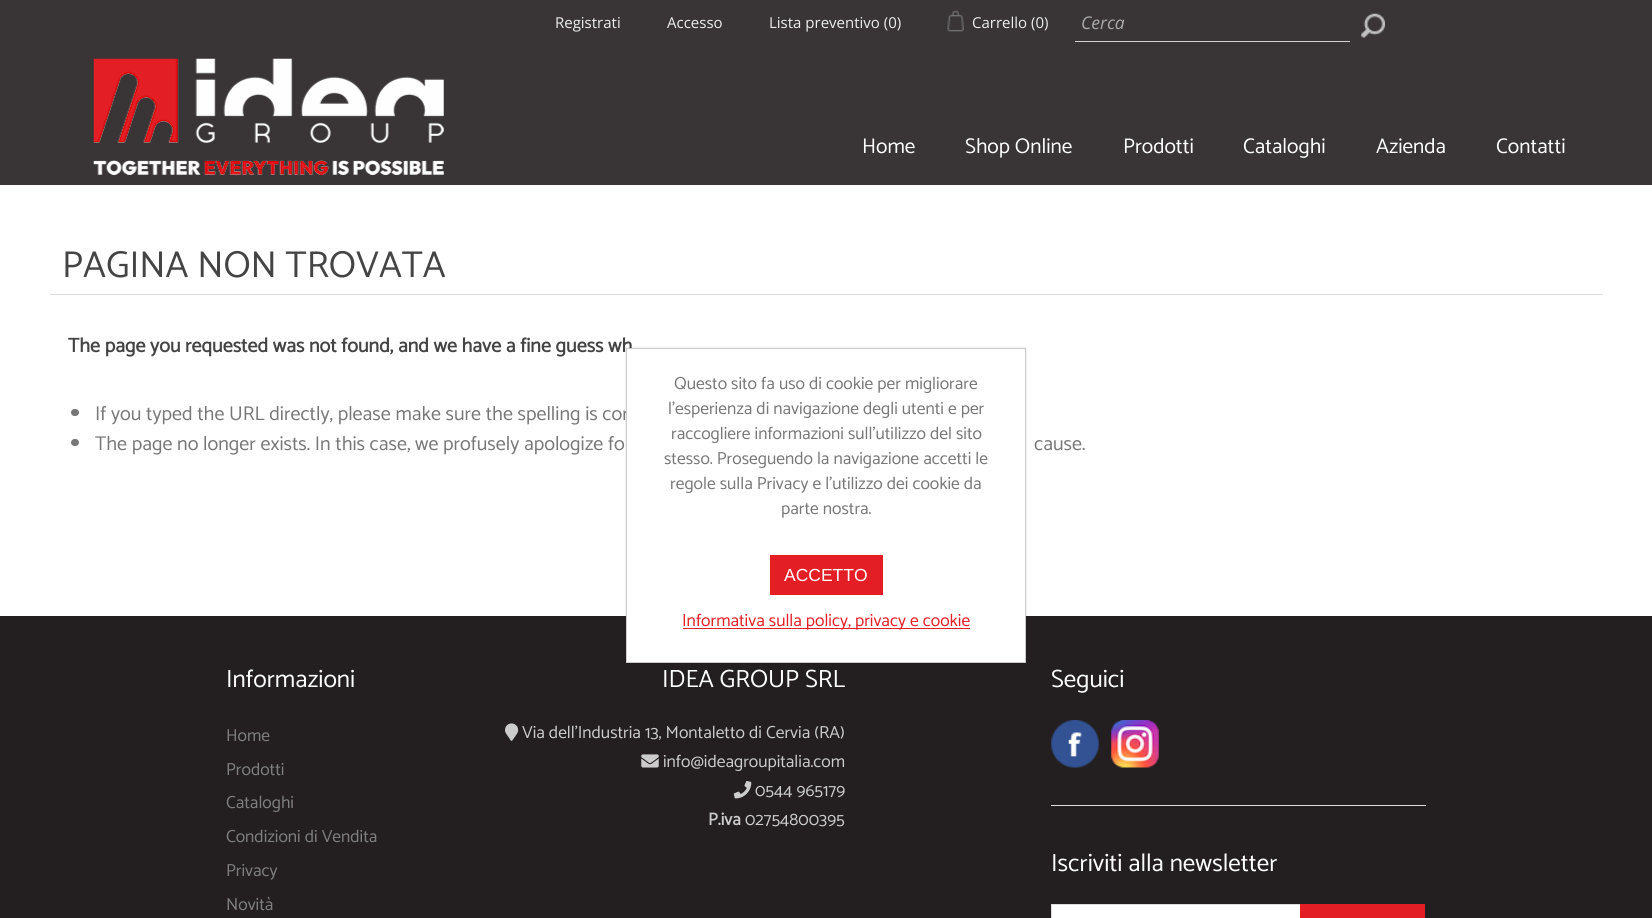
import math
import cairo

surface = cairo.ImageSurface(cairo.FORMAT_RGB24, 1652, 918)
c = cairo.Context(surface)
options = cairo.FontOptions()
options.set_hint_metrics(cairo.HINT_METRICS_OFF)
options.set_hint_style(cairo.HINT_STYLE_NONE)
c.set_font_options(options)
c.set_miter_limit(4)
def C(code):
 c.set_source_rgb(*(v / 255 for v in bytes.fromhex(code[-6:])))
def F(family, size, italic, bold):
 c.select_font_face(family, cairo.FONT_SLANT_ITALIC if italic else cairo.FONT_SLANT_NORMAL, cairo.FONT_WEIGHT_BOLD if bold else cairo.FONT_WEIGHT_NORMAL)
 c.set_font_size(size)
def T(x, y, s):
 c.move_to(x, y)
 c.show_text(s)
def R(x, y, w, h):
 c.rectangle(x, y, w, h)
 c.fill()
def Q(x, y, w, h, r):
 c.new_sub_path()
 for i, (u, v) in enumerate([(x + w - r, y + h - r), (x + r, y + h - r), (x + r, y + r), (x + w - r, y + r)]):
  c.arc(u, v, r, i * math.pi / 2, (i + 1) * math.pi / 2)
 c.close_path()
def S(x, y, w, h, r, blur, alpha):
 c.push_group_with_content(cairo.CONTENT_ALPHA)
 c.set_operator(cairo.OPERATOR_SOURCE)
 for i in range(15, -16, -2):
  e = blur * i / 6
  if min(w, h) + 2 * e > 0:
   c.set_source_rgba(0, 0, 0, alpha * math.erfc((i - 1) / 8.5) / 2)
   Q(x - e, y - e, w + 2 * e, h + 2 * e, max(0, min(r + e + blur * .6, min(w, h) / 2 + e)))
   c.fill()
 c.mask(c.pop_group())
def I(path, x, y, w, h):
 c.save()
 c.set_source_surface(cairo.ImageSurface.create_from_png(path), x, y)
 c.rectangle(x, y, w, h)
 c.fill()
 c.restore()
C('ffffff')
c.paint()
C('393536')
R(0,0,1652,185)
F('Open Sans',15,0,0)
C('eeeeee')
T(555,28,'Registrati')
T(667,28,'Accesso')
T(769,28,'Lista preventivo (0)')
I('1.png',947,10,17,22)
T(972,28,'Carrello (0)')
C('d3d3d3')
R(1075,41,275,1)
F('Open Sans',17.5,1,0)
C('aaaaaa')
T(1081,29,'Cerca')
I('2.png',1361,13,24,25)
I('3.png',93,58,351,117)
F('Catamaran Thin',21.25,0,0)
C('ffffff')
T(862,153,'Home')
T(965,153,'Shop Online')
T(1123,153,'Prodotti')
T(1243,153,'Cataloghi')
T(1376,153,'Azienda')
T(1496,153,'Contatti')
C('dddddd')
R(50,294,1553,1)
F('Catamaran Thin',37.5,0,0)
C('444444')
T(62,277,'PAGINA NON TROVATA')
F('Catamaran',20,0,1)
T(68,352,'The page you requested was not found, and we have a fine guess wh')
C('777777')
Q(71,409,8,7,3.5)
c.fill()
F('Catamaran Thin',20,0,0)
T(95,420,'If you typed the URL directly, please make sure the spelling is cor')
Q(71,439,8,7,3.5)
c.fill()
T(95,450,'The page no longer exists. In this case, we profusely apologize fo')
T(1034,450,'cause.')
C('231f20')
R(0,616,1652,302)
F('Catamaran Thin',25,0,0)
C('ffffff')
T(226,687,'Informazioni')
F('Catamaran Thin',17.5,0,0)
C('808080')
T(226,741,'Home')
T(226,775,'Prodotti')
T(226,808,'Cataloghi')
T(226,842,'Condizioni di Vendita')
T(226,876,'Privacy')
T(226,910,'Novità')
F('Catamaran Thin',25,0,0)
C('ffffff')
T(662,687,'IDEA GROUP SRL')
I('4.png',505,723,14,18)
F('Catamaran Thin',17.5,0,0)
C('cccccc')
T(522,738,'Via dell\'Industria 13, Montaletto di Cervia (RA)')
I('5.png',641,754,18,14)
T(663,767,'info@ideagroupitalia.com')
I('6.png',733,781,19,18)
T(755,796,'0544 965179')
F('Catamaran',17.5,0,1)
T(708,825,'P.iva')
F('Catamaran Thin',17.5,0,0)
T(745,825,'02754800395')
F('Catamaran Thin',25,0,0)
C('ffffff')
T(1051,687,'Seguici')
C('dddddd')
R(1051,805,375,1)
I('7.png',1051,720,48,48)
I('8.png',1111,720,48,48)
C('ffffff')
T(1051,871,'Iscriviti alla newsletter')
c.rectangle(1051.5,904.5,249,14)
c.fill_preserve()
C('dddddd')
c.set_line_width(1)
c.stroke()
C('e31e24')
R(1300,904,125,14)
C('000000')
S(626,348,400,315,0,1,.15)
C('ffffff')
c.rectangle(626.5,348.5,399,314)
c.fill_preserve()
C('cccccc')
c.stroke()
F('Catamaran Thin',17.5,0,0)
C('777777')
T(674,389,'Questo sito fa uso di cookie per migliorare')
T(668,414,'l’esperienza di navigazione degli utenti e per')
T(671,439,'raccogliere informazioni sull’utilizzo del sito')
T(664,464,'stesso. Proseguendo la navigazione accetti le')
T(670,489,'regole sulla Privacy e l\'utilizzo dei cookie da')
T(781,514,'parte nostra.')
C('e31e24')
R(770,555,113,40)
F('Liberation Sans',17.5,0,0)
C('ffffff')
T(784,581,'ACCETTO')
C('e31e24')
R(683,628,287,1)
F('Catamaran Thin',17.5,0,0)
T(682,626,'Informativa sulla policy, privacy e cookie')
surface.write_to_png('o.png')
